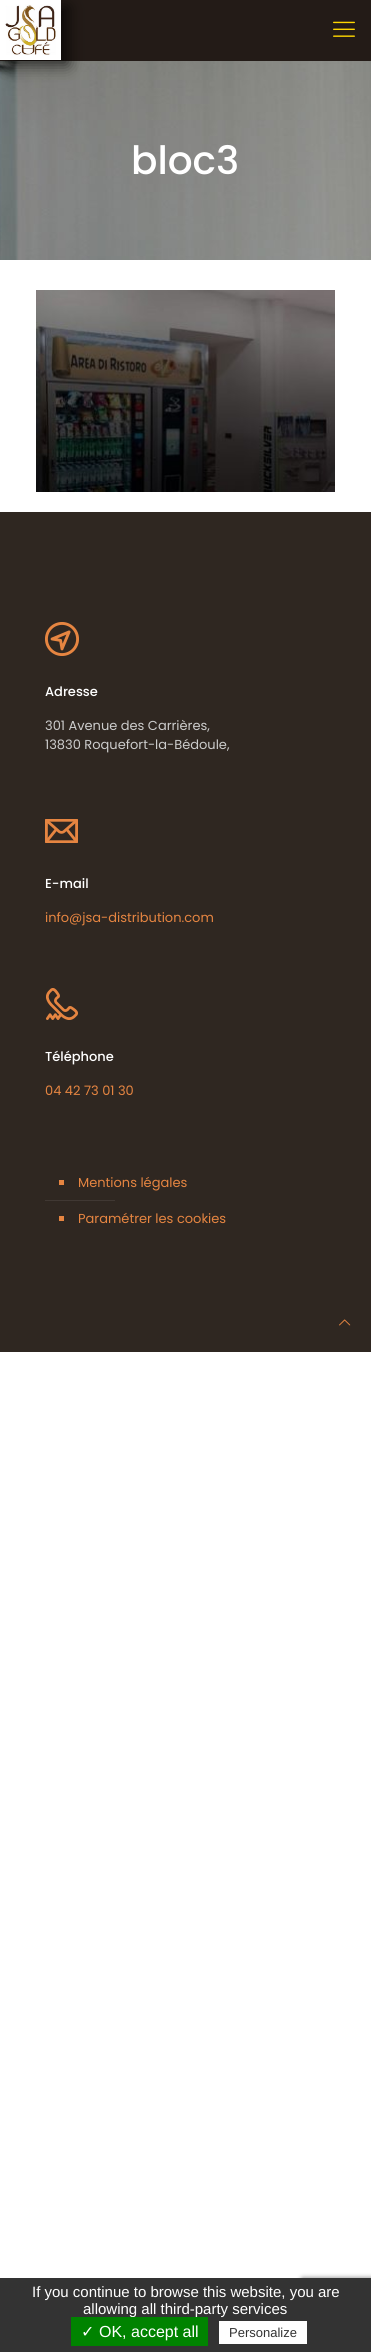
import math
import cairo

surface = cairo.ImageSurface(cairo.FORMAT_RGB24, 371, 2352)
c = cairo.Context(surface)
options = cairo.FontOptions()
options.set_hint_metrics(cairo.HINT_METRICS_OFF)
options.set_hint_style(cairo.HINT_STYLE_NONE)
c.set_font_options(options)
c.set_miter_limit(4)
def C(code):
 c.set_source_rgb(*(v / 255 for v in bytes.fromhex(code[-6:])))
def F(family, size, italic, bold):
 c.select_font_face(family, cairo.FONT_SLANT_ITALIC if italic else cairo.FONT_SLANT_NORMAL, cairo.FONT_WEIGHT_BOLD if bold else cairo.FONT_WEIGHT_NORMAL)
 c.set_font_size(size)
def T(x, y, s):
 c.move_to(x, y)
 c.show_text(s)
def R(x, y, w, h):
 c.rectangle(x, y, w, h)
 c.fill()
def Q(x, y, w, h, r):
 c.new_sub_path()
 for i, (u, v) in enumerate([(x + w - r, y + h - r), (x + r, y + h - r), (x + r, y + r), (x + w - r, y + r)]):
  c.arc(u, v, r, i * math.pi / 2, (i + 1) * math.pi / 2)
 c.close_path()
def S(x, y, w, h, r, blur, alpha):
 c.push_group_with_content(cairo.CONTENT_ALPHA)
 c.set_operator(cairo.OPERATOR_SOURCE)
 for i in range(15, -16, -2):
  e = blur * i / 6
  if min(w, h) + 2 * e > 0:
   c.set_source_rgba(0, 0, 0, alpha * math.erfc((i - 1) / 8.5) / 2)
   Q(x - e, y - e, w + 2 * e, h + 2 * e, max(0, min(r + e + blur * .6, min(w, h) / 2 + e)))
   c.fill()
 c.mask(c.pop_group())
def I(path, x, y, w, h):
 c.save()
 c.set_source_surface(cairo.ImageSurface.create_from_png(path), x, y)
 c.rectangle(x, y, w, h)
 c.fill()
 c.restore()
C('ffffff')
c.paint()
I('1.png',0,61,371,199)
C('231b17')
R(0,0,371,61)
C('000000')
S(9,7,59,58,0,8,.7)
I('2.png',0,0,61,60)
I('3.png',333,21,22,16)
F('Poppins Medium',39,0,0)
C('ffffff')
T(131,174,'bloc3')
I('4.png',36,290,299,202)
C('2f2721')
R(0,512,371,840)
I('5.png',45,622,34,34)
F('Poppins Medium',13,0,0)
C('ffffff')
T(45,696,'Adresse')
F('Poppins',13,0,0)
C('cccccc')
T(45,730,'301 Avenue des Carrières,')
T(45,749,'13830 Roquefort-la-Bédoule,')
I('6.png',45,819,33,24)
F('Poppins Medium',13,0,0)
C('ffffff')
T(45,888,'E-mail')
F('Poppins',13,0,0)
C('e68541')
T(45,922,'info@jsa-distribution.com')
I('7.png',46,988,32,32)
F('Poppins Medium',13,0,0)
C('ffffff')
T(45,1061,'Téléphone')
F('Poppins',13,0,0)
C('e68541')
T(45,1095,'04 42 73 01 30')
R(59,1180,5,5)
T(78,1187,'Mentions légales')
C('403833')
R(45,1200,70,1)
C('e68541')
R(59,1216,5,5)
T(78,1223,'Paramétrer les cookies')
I('8.png',339,1319,12,7)
C('808080')
S(301,2278,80,60,2,2.5,1)
C('333333')
R(0,2278,371,74)
F('Liberation Sans',15,0,0)
C('ffffff')
T(32,2297,'If you continue to browse this website, you are')
T(83,2314,'allowing all third-party services')
C('008300')
R(71,2317,137,29)
F('DejaVu Sans',16,0,0)
C('ffffff')
T(81,2337,'✓')
F('Liberation Sans',16,0,0)
T(99,2337,'OK, accept all')
R(219,2321,88,23)
F('Liberation Sans',13,0,0)
C('333333')
T(229,2337,'Personalize')
surface.write_to_png('o.png')
